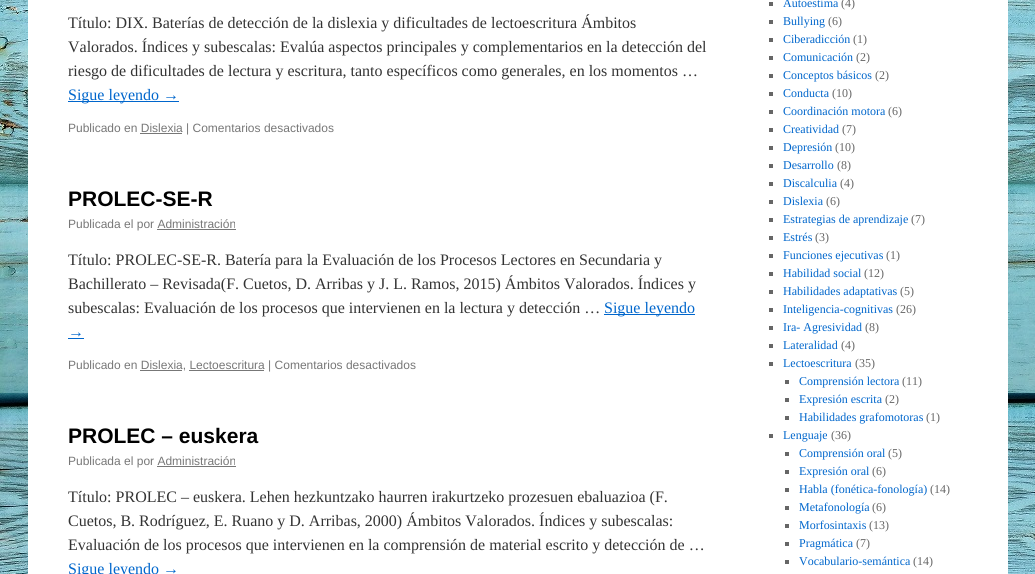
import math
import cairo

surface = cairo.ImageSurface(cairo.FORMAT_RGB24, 1035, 574)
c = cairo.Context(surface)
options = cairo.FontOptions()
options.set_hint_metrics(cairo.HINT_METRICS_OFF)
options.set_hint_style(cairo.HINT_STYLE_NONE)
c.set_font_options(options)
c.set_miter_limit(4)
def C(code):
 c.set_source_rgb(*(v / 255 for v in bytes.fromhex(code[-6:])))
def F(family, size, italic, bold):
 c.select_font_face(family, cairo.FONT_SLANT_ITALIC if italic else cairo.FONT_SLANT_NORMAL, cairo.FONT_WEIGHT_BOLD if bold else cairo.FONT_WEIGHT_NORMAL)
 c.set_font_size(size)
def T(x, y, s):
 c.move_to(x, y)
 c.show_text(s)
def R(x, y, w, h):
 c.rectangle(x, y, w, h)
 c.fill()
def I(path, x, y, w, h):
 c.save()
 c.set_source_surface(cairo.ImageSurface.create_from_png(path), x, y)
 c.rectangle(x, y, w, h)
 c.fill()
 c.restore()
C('ffffff')
c.paint()
I('1.png',0,0,1035,574)
C('ffffff')
R(28,0,980,574)
F('Liberation Serif',16,0,0)
C('333333')
T(68,28,'Título: DIX. Baterías de detección de la dislexia y dificultades de lectoescritura Ámbitos')
T(68,52,'Valorados. Índices y subescalas: Evalúa aspectos principales y complementarios en la detección del')
T(68,76,'riesgo de dificultades de lectura y escritura, tanto específicos como generales, en los momentos …')
C('0066cc')
R(68,101,111,1)
T(68,100,'Sigue leyendo →')
F('Liberation Sans',12,0,0)
C('777777')
T(68,132,'Publicado en Dislexia | Comentarios desactivados')
R(140,133,42,1)
F('Liberation Sans',21,0,1)
C('000000')
T(68,206,'PROLEC-SE-R')
F('Liberation Sans',12,0,0)
C('777777')
T(68,228,'Publicada el por Administración')
R(157,229,79,1)
F('Liberation Serif',16,0,0)
C('333333')
T(68,265,'Título: PROLEC-SE-R. Batería para la Evaluación de los Procesos Lectores en Secundaria y')
T(68,289,'Bachillerato – Revisada(F. Cuetos, D. Arribas y J. L. Ramos, 2015) Ámbitos Valorados. Índices y')
T(68,313,'subescalas: Evaluación de los procesos que intervienen en la lectura y detección …')
C('0066cc')
R(604,314,91,1)
T(604,313,'Sigue leyendo')
T(68,337,'→')
R(68,338,16,1)
F('Liberation Sans',12,0,0)
C('777777')
T(68,369,'Publicado en Dislexia, Lectoescritura | Comentarios desactivados')
R(140,370,42,1)
R(189,370,75,1)
F('Liberation Sans',21,0,1)
C('000000')
T(68,443,'PROLEC – euskera')
F('Liberation Sans',12,0,0)
C('777777')
T(68,465,'Publicada el por Administración')
R(157,466,79,1)
F('Liberation Serif',16,0,0)
C('333333')
T(68,502,'Título: PROLEC – euskera. Lehen hezkuntzako haurren irakurtzeko prozesuen ebaluazioa (F.')
T(68,526,'Cuetos, B. Rodríguez, E. Ruano y D. Arribas, 2000) Ámbitos Valorados. Índices y subescalas:')
T(68,550,'Evaluación de los procesos que intervienen en la comprensión de material escrito y detección de …')
C('0066cc')
T(68,574,'Sigue leyendo →')
C('666666')
R(769,2,4,4)
F('Liberation Serif',12,0,0)
C('0066cc')
T(783,7,'Autoestima')
C('666666')
T(841,7,'(4)')
R(769,20,4,4)
C('0066cc')
T(783,25,'Bullying')
C('666666')
T(828,25,'(6)')
R(769,38,4,4)
C('0066cc')
T(783,43,'Ciberadicción')
C('666666')
T(853,43,'(1)')
R(769,56,4,4)
C('0066cc')
T(783,61,'Comunicación')
C('666666')
T(856,61,'(2)')
R(769,74,4,4)
C('0066cc')
T(783,79,'Conceptos básicos')
C('666666')
T(875,79,'(2)')
R(769,92,4,4)
C('0066cc')
T(783,97,'Conducta')
C('666666')
T(832,97,'(10)')
R(769,110,4,4)
C('0066cc')
T(783,115,'Coordinación motora')
C('666666')
T(888,115,'(6)')
R(769,128,4,4)
C('0066cc')
T(783,133,'Creatividad')
C('666666')
T(842,133,'(7)')
R(769,146,4,4)
C('0066cc')
T(783,151,'Depresión')
C('666666')
T(835,151,'(10)')
R(769,164,4,4)
C('0066cc')
T(783,169,'Desarrollo')
C('666666')
T(837,169,'(8)')
R(769,182,4,4)
C('0066cc')
T(783,187,'Discalculia')
C('666666')
T(840,187,'(4)')
R(769,200,4,4)
C('0066cc')
T(783,205,'Dislexia')
C('666666')
T(826,205,'(6)')
R(769,218,4,4)
C('0066cc')
T(783,223,'Estrategias de aprendizaje')
C('666666')
T(911,223,'(7)')
R(769,236,4,4)
C('0066cc')
T(783,241,'Estrés')
C('666666')
T(815,241,'(3)')
R(769,254,4,4)
C('0066cc')
T(783,259,'Funciones ejecutivas')
C('666666')
T(886,259,'(1)')
R(769,272,4,4)
C('0066cc')
T(783,277,'Habilidad social')
C('666666')
T(864,277,'(12)')
R(769,290,4,4)
C('0066cc')
T(783,295,'Habilidades adaptativas')
C('666666')
T(900,295,'(5)')
R(769,308,4,4)
C('0066cc')
T(783,313,'Inteligencia-cognitivas')
C('666666')
T(896,313,'(26)')
R(769,326,4,4)
C('0066cc')
T(783,331,'Ira- Agresividad')
C('666666')
T(865,331,'(8)')
R(769,344,4,4)
C('0066cc')
T(783,349,'Lateralidad')
C('666666')
T(841,349,'(4)')
R(769,362,4,4)
C('0066cc')
T(783,367,'Lectoescritura')
C('666666')
T(855,367,'(35)')
R(785,380,4,4)
C('0066cc')
T(799,385,'Comprensión lectora')
C('666666')
T(902,385,'(11)')
R(785,398,4,4)
C('0066cc')
T(799,403,'Expresión escrita')
C('666666')
T(885,403,'(2)')
R(785,416,4,4)
C('0066cc')
T(799,421,'Habilidades grafomotoras')
C('666666')
T(926,421,'(1)')
R(769,434,4,4)
C('0066cc')
T(783,439,'Lenguaje')
C('666666')
T(831,439,'(36)')
R(785,452,4,4)
C('0066cc')
T(799,457,'Comprensión oral')
C('666666')
T(888,457,'(5)')
R(785,470,4,4)
C('0066cc')
T(799,475,'Expresión oral')
C('666666')
T(872,475,'(6)')
R(785,488,4,4)
C('0066cc')
T(799,493,'Habla (fonética-fonología)')
C('666666')
T(930,493,'(14)')
R(785,506,4,4)
C('0066cc')
T(799,511,'Metafonología')
C('666666')
T(872,511,'(6)')
R(785,524,4,4)
C('0066cc')
T(799,529,'Morfosintaxis')
C('666666')
T(869,529,'(13)')
R(785,542,4,4)
C('0066cc')
T(799,547,'Pragmática')
C('666666')
T(856,547,'(7)')
R(785,560,4,4)
C('0066cc')
T(799,565,'Vocabulario-semántica')
C('666666')
T(913,565,'(14)')
surface.write_to_png('o.png')
